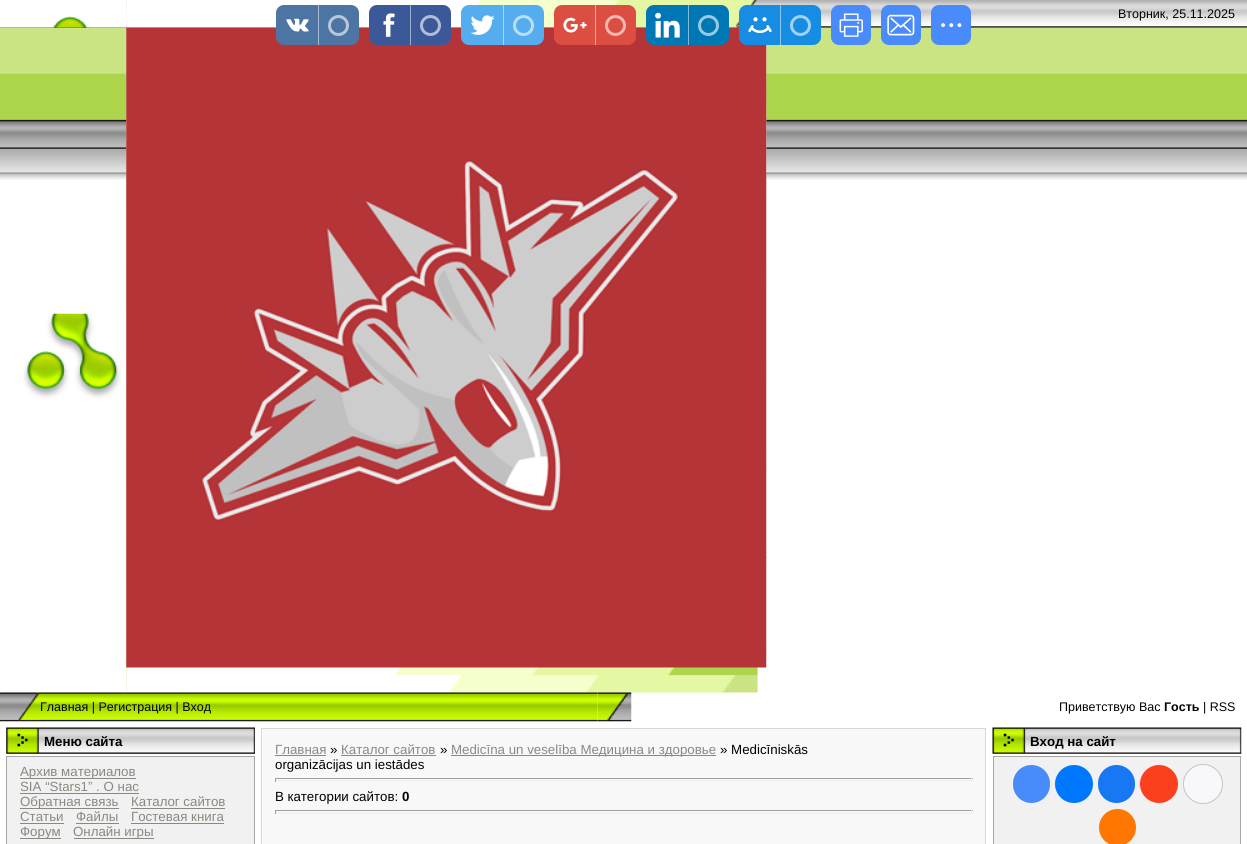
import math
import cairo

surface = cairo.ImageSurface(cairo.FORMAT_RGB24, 1247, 844)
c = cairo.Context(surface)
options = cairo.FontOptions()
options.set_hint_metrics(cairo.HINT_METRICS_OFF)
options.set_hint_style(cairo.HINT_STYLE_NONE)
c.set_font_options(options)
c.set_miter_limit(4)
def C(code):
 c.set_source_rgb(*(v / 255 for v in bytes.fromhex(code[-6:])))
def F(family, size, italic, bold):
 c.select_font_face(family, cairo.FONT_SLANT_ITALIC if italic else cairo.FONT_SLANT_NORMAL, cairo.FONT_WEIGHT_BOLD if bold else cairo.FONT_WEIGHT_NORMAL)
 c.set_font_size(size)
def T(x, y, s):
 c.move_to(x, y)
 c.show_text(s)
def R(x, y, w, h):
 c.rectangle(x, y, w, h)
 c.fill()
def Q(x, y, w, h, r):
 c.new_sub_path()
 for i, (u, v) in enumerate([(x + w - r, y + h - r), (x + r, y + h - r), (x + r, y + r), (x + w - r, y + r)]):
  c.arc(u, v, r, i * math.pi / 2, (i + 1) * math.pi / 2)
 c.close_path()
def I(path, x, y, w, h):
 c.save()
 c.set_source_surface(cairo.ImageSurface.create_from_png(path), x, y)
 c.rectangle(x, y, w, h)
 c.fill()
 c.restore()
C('ffffff')
c.paint()
I('10.png',0,0,1247,180)
I('14.png',126,27,641,666)
I('11.png',0,0,127,28)
I('12.png',126,0,632,28)
I('13.png',23,313,104,93)
I('15.png',126,27,641,641)
C('4d75a3')
Q(276,5,83,40,8)
c.fill()
I('1.png',286,18,23,14)
C('a6bad1')
R(318,5,1,40)
c.arc(338.5,25.5,9,0,2 * math.pi)
C('b8c8da')
c.set_line_width(3)
c.stroke()
C('3b5998')
Q(369,5,82,40,8)
c.fill()
I('2.png',383,13,12,24)
C('9daccc')
R(410,5,1,40)
c.arc(430.5,25.5,9,0,2 * math.pi)
C('b1bdd6')
c.stroke()
C('55acee')
Q(461,5,83,40,8)
c.fill()
I('3.png',470,15,25,20)
C('aad6f7')
R(503,5,1,40)
c.arc(523.5,25.5,9,0,2 * math.pi)
C('bbdef8')
c.stroke()
C('dc4e41')
Q(554,5,82,40,8)
c.fill()
I('4.png',563,17,24,16)
C('eea7a0')
R(595,5,1,40)
c.arc(615.5,25.5,9,0,2 * math.pi)
C('f1b8b3')
c.stroke()
C('0077b5')
Q(646,5,83,40,8)
c.fill()
I('5.png',655,12,25,26)
C('80bbda')
R(688,5,1,40)
c.arc(708.5,25.5,9,0,2 * math.pi)
C('99c9e1')
c.stroke()
C('168de2')
Q(739,5,82,40,8)
c.fill()
I('6.png',748,17,24,16)
C('8bc6f1')
R(780,5,1,40)
c.arc(800.5,25.5,9,0,2 * math.pi)
C('a2d1f3')
c.stroke()
C('498bfa')
Q(831,5,40,40,8)
c.fill()
I('7.png',839,13,24,24)
Q(881,5,40,40,8)
c.fill()
I('8.png',887,14,28,22)
Q(931,5,40,40,8)
c.fill()
I('9.png',941,23,21,5)
F('Liberation Sans',12.5,0,0)
C('000000')
T(1118,18,'Вторник, 25.11.2025')
I('16.png',0,692,40,30)
I('17.png',40,692,558,30)
T(40,711,'Главная | Регистрация | Вход')
I('18.png',597,692,35,30)
T(1059,711,'Приветствую Вас')
F('Liberation Sans',12.5,0,1)
T(1164,711,'Гость')
F('Liberation Sans',12.5,0,0)
T(1203,711,'| RSS')
C('d4dff7')
R(6,728,249,26)
I('19.png',6,727,249,27)
F('Liberation Sans',13.3,0,1)
C('000000')
T(44,746,'Меню сайта')
C('f1f1f1')
c.rectangle(6.5,756.5,248,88)
c.fill_preserve()
C('a7a6a6')
c.set_line_width(1)
c.stroke()
C('8b8881')
R(20,778,116,1)
F('Liberation Sans',13.3,0,0)
T(20,776,'Архив материалов')
T(20,791,'SIA “Stars1” . О нас')
R(20,793,119,1)
R(20,808,99,1)
T(20,806,'Обратная связь')
T(131,806,'Каталог сайтов')
R(131,808,94,1)
T(20,821,'Статьи')
R(20,823,44,1)
T(76,821,'Файлы')
R(76,823,43,1)
T(131,821,'Гостевая книга')
R(131,823,93,1)
R(20,838,41,1)
T(20,836,'Форум')
R(74,838,80,1)
T(73,836,'Онлайн игры')
I('20.png',992,727,250,27)
F('Liberation Sans',13.3,0,1)
C('000000')
T(1030,746,'Вход на сайт')
C('f1f1f1')
c.rectangle(993.5,756.5,247,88)
c.fill_preserve()
C('a7a6a6')
c.stroke()
C('498bfa')
Q(1013,765,37,38,18.5)
c.fill()
C('0077ff')
c.arc(1074,784,19,0,2 * math.pi)
c.fill()
C('1877f2')
Q(1098,765,37,38,18.5)
c.fill()
C('fc3f1d')
c.arc(1159,784,19,0,2 * math.pi)
c.fill()
C('f8f8fc')
c.arc(1203,784,19.5,0,2 * math.pi)
c.fill_preserve()
C('c4c4c4')
c.stroke()
C('ff7700')
c.arc(1117.5,827.5,18.5,0,2 * math.pi)
c.fill()
c.rectangle(261.5,728.5,724,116)
C('d7d7d7')
c.stroke()
C('f8f8f8')
R(263,729,722,115)
F('Liberation Sans',13.3,0,0)
C('8b8881')
T(275,754,'Главная')
R(275,755,51,1)
C('000000')
T(330,754,'»')
C('8b8881')
T(341,754,'Каталог сайтов')
R(341,755,95,1)
C('000000')
T(440,754,'»')
C('8b8881')
R(451,755,265,1)
T(451,754,'Medicīna un veselība Медицина и здоровье')
C('000000')
T(720,754,'» Medicīniskās')
T(275,769,'organizācijas un iestādes')
C('9f9f9f')
R(275,778,698,1)
C('eeeeee')
R(971,778,1,4)
R(275,780,698,1)
C('9f9f9f')
R(275,778,1,4)
C('000000')
T(275,801,'В категории сайтов:')
F('Liberation Sans',13.3,0,1)
T(402,801,'0')
C('9f9f9f')
R(275,810,698,1)
C('eeeeee')
R(971,810,1,4)
R(275,813,698,1)
C('9f9f9f')
R(275,810,1,4)
surface.write_to_png('o.png')
